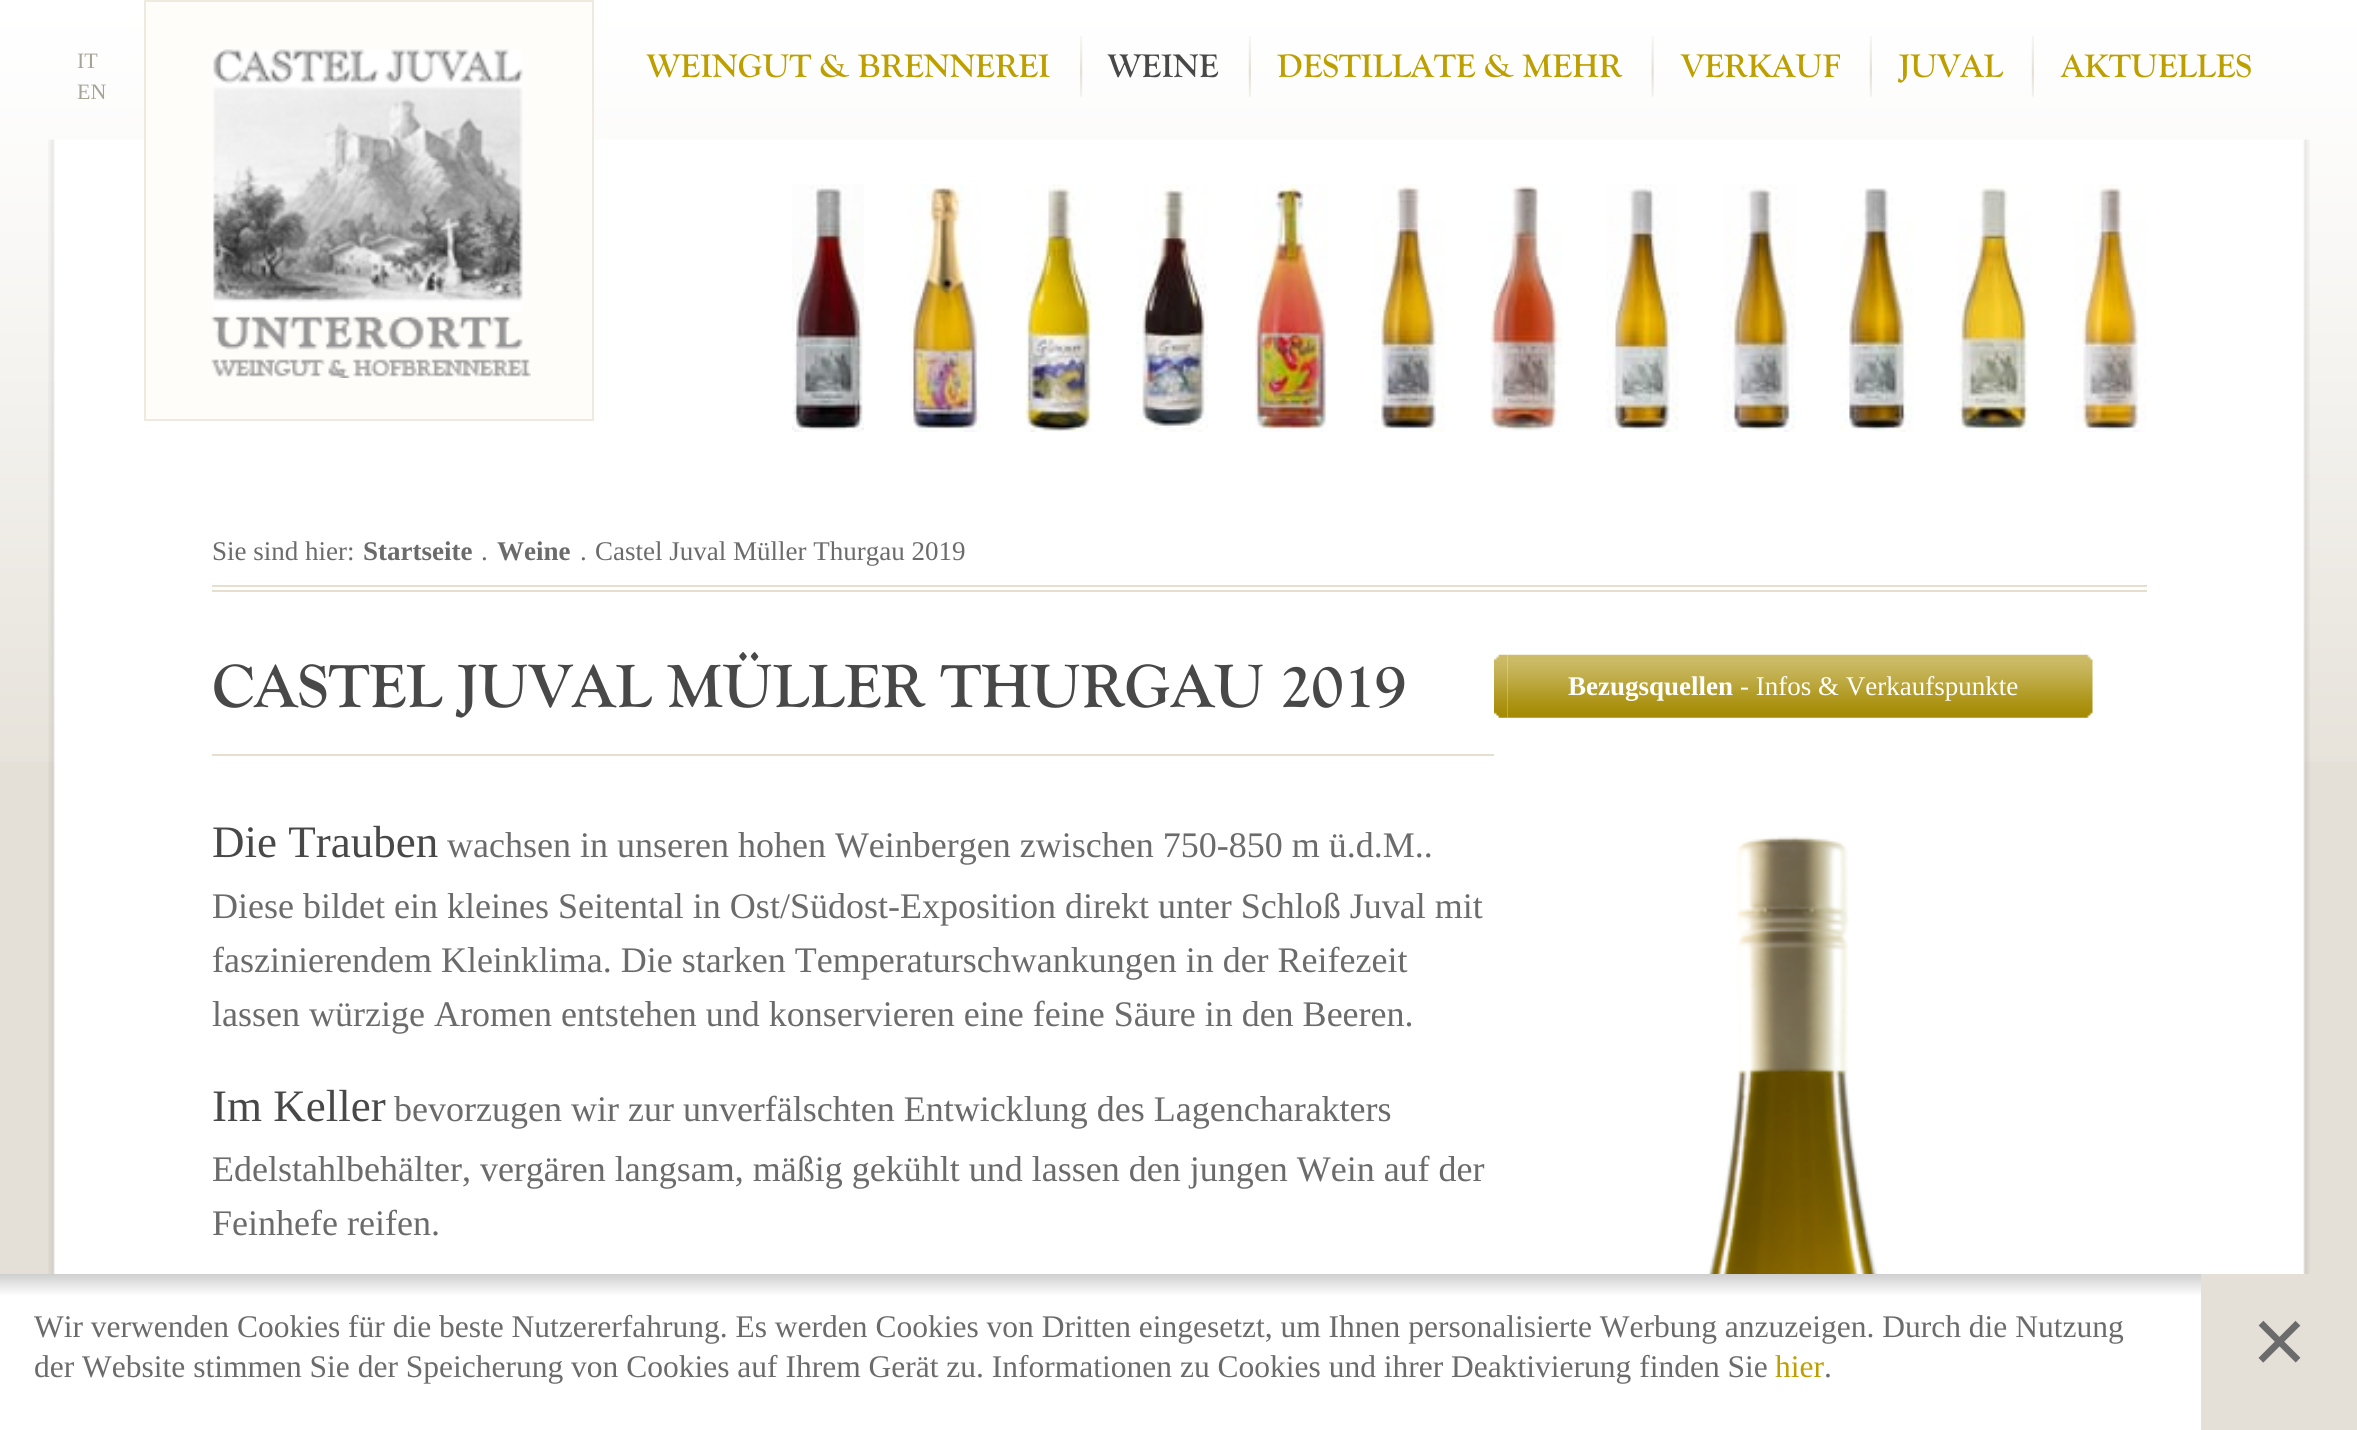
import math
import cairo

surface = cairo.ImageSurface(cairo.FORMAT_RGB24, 2357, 1430)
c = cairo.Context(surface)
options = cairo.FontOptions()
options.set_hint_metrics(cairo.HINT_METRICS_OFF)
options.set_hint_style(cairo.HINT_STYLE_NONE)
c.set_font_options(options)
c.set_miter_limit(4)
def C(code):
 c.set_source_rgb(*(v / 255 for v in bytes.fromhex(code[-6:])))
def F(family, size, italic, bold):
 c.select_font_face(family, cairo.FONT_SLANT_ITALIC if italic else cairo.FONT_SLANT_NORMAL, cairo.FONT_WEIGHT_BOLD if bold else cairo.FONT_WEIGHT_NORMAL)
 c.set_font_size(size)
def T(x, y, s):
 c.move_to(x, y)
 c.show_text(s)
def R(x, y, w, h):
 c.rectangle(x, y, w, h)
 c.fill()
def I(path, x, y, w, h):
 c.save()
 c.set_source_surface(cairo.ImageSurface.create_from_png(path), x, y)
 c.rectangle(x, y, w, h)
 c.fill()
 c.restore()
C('e4e0d7')
c.paint()
I('1.png',0,0,2357,762)
I('2.png',48,139,2262,1135)
F('Liberation Serif',22,0,0)
C('a7a497')
T(77,68,'IT')
T(77,99,'EN')
C('fffdfa')
c.rectangle(145,1,448,419)
c.fill_preserve()
C('efeae0')
c.stroke()
I('3.png',211,49,320,329)
I('4.png',792,184,72,248)
I('5.png',909,184,72,248)
I('6.png',1026,184,66,248)
I('7.png',1136,184,72,248)
I('8.png',1255,184,73,248)
I('9.png',1372,184,73,248)
I('10.png',1489,184,73,248)
I('11.png',1606,184,73,248)
I('12.png',1723,184,73,248)
I('13.png',1840,188,73,244)
I('14.png',1957,184,73,248)
I('15.png',2074,184,73,248)
F('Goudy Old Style',33.75,0,1)
C('bd9f00')
T(647,77,'WEINGUT & BRENNEREI')
I('16.png',1080,36,3,61)
C('484848')
T(1108,77,'WEINE')
I('17.png',1248,36,3,61)
C('bd9f00')
T(1277,77,'DESTILLATE & MEHR')
I('18.png',1651,36,3,61)
T(1681,77,'VERKAUF')
I('17.png',1869,36,3,61)
T(1899,77,'JUVAL')
I('17.png',2031,36,3,61)
T(2061,77,'AKTUELLES')
C('e6dece')
R(212,585,1935,2)
F('Liberation Serif',27,0,0)
C('6b6b6b')
T(212,560,'Sie sind hier:')
F('Liberation Serif',27,0,1)
T(363,560,'Startseite')
F('Liberation Serif',27,0,0)
T(481,560,'.')
F('Liberation Serif',27,0,1)
T(497,560,'Weine')
F('Liberation Serif',27,0,0)
T(580,560,'.')
T(595,560,'Castel Juval Müller Thurgau 2019')
C('e6dece')
R(212,590,1935,2)
F('Goudy Old Style',63,0,1)
C('484848')
T(212,707,'CASTEL JUVAL MÜLLER THURGAU 2019')
C('e6dece')
R(212,754,1282,2)
F('Liberation Serif',45,0,0)
C('484848')
T(212,857,'Die Trauben')
F('Liberation Serif',36,0,0)
C('6b6b6b')
T(447,857,'wachsen in unseren hohen Weinbergen zwischen 750-850 m ü.d.M..')
T(212,918,'Diese bildet ein kleines Seitental in Ost/Südost-Exposition direkt unter Schloß Juval mit')
T(212,972,'faszinierendem Kleinklima. Die starken Temperaturschwankungen in der Reifezeit')
T(212,1026,'lassen würzige Aromen entstehen und konservieren eine feine Säure in den Beeren.')
F('Liberation Serif',45,0,0)
C('484848')
T(212,1121,'Im Keller')
F('Liberation Serif',36,0,0)
C('6b6b6b')
T(394,1121,'bevorzugen wir zur unverfälschten Entwicklung des Lagencharakters')
T(212,1181,'Edelstahlbehälter, vergären langsam, mäßig gekühlt und lassen den jungen Wein auf der')
T(212,1235,'Feinhefe reifen.')
I('19.png',1494,654,14,64)
I('20.png',1507,654,572,64)
F('Liberation Serif',27,0,1)
C('ffffff')
T(1568,695,'Bezugsquellen')
F('Liberation Serif',27,0,0)
T(1740,695,'- Infos & Verkaufspunkte')
I('21.png',2079,654,14,64)
I('22.png',1707,836,173,438)
R(0,1296,2201,134)
gradient = cairo.LinearGradient(1179,1273,1179,1296)
gradient.add_color_stop_rgba(0,0.8,0.8,0.8,1)
gradient.add_color_stop_rgba(1,1,1,1,1)
c.set_source(gradient)
R(0,1274,2201,22)
F('Liberation Serif',31.5,0,0)
C('6b6b6b')
T(34,1337,'Wir verwenden Cookies für die beste Nutzererfahrung. Es werden Cookies von Dritten eingesetzt, um Ihnen personalisierte Werbung anzuzeigen. Durch die Nutzung')
T(34,1377,'der Website stimmen Sie der Speicherung von Cookies auf Ihrem Gerät zu. Informationen zu Cookies und ihrer Deaktivierung finden Sie')
C('bd9f00')
T(1775,1377,'hier')
C('6b6b6b')
T(1824,1377,'.')
F('Liberation Sans',94,0,0)
T(2252,1373,'×')
surface.write_to_png('o.png')
